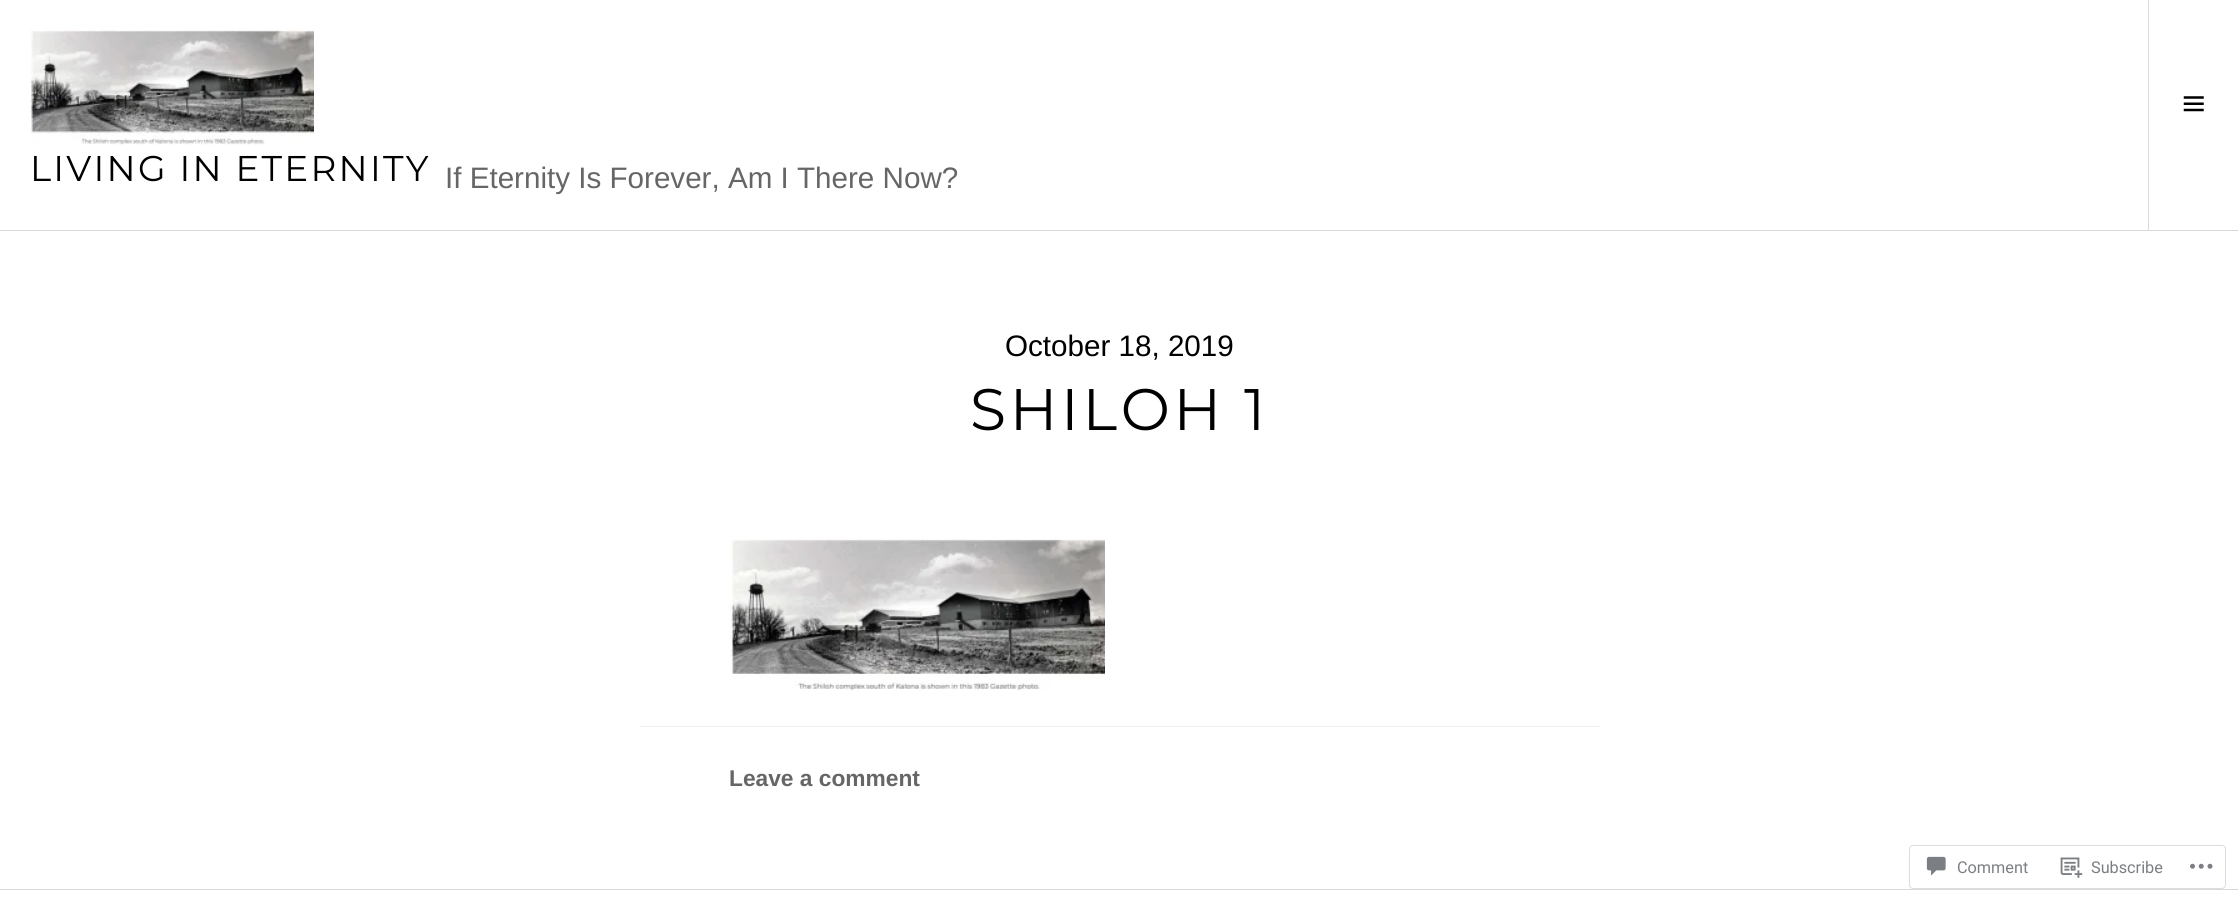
import math
import cairo

surface = cairo.ImageSurface(cairo.FORMAT_RGB24, 2238, 901)
c = cairo.Context(surface)
options = cairo.FontOptions()
options.set_hint_metrics(cairo.HINT_METRICS_OFF)
options.set_hint_style(cairo.HINT_STYLE_NONE)
c.set_font_options(options)
c.set_miter_limit(4)
def C(code):
 c.set_source_rgb(*(v / 255 for v in bytes.fromhex(code[-6:])))
def F(family, size, italic, bold):
 c.select_font_face(family, cairo.FONT_SLANT_ITALIC if italic else cairo.FONT_SLANT_NORMAL, cairo.FONT_WEIGHT_BOLD if bold else cairo.FONT_WEIGHT_NORMAL)
 c.set_font_size(size)
def T(x, y, s):
 c.move_to(x, y)
 c.show_text(s)
def L(x, y, s, letter, word):
 c.move_to(x, y)
 for ch in s:
  c.show_text(ch)
  c.rel_move_to(letter + word * (ch == ' '), 0)
def R(x, y, w, h):
 c.rectangle(x, y, w, h)
 c.fill()
def Q(x, y, w, h, r):
 c.new_sub_path()
 for i, (u, v) in enumerate([(x + w - r, y + h - r), (x + r, y + h - r), (x + r, y + r), (x + w - r, y + r)]):
  c.arc(u, v, r, i * math.pi / 2, (i + 1) * math.pi / 2)
 c.close_path()
def I(path, x, y, w, h):
 c.save()
 c.set_source_surface(cairo.ImageSurface.create_from_png(path), x, y)
 c.rectangle(x, y, w, h)
 c.fill()
 c.restore()
C('ffffff')
c.paint()
C('d9d9d9')
R(0,230,2238,1)
I('1.png',30,30,284,115)
F('Montserrat',35.75,0,0)
C('000000')
L(30,181,'LIVING IN ETERNITY',2.25,0)
F('Arimo',29.6,0,0)
C('666666')
T(445,188,'If Eternity Is Forever, Am I There Now?')
C('d9d9d9')
R(2148,0,1,230)
I('2.png',2183,96,21,16)
C('000000')
T(1005,356,'October 18, 2019')
F('Montserrat',58.5,0,0)
L(970,430,'SHILOH 1',3.75,0)
I('3.png',730,539,375,152)
C('f2f2f2')
R(640,726,960,1)
F('Arimo',22.75,0,1)
C('666666')
T(729,786,'Leave a comment')
C('d9d9d9')
R(0,889,2238,1)
Q(1909.5,845.5,316,43,3.5)
C('dddddf')
c.set_line_width(1)
c.stroke()
I('4.png',1926,856,20,20)
F('Roboto',16.25,0,0)
C('7b7f85')
T(1957,873,'Comment')
I('5.png',2060,857,23,21)
T(2091,873,'Subscribe')
I('6.png',2190,863,23,6)
surface.write_to_png('o.png')
